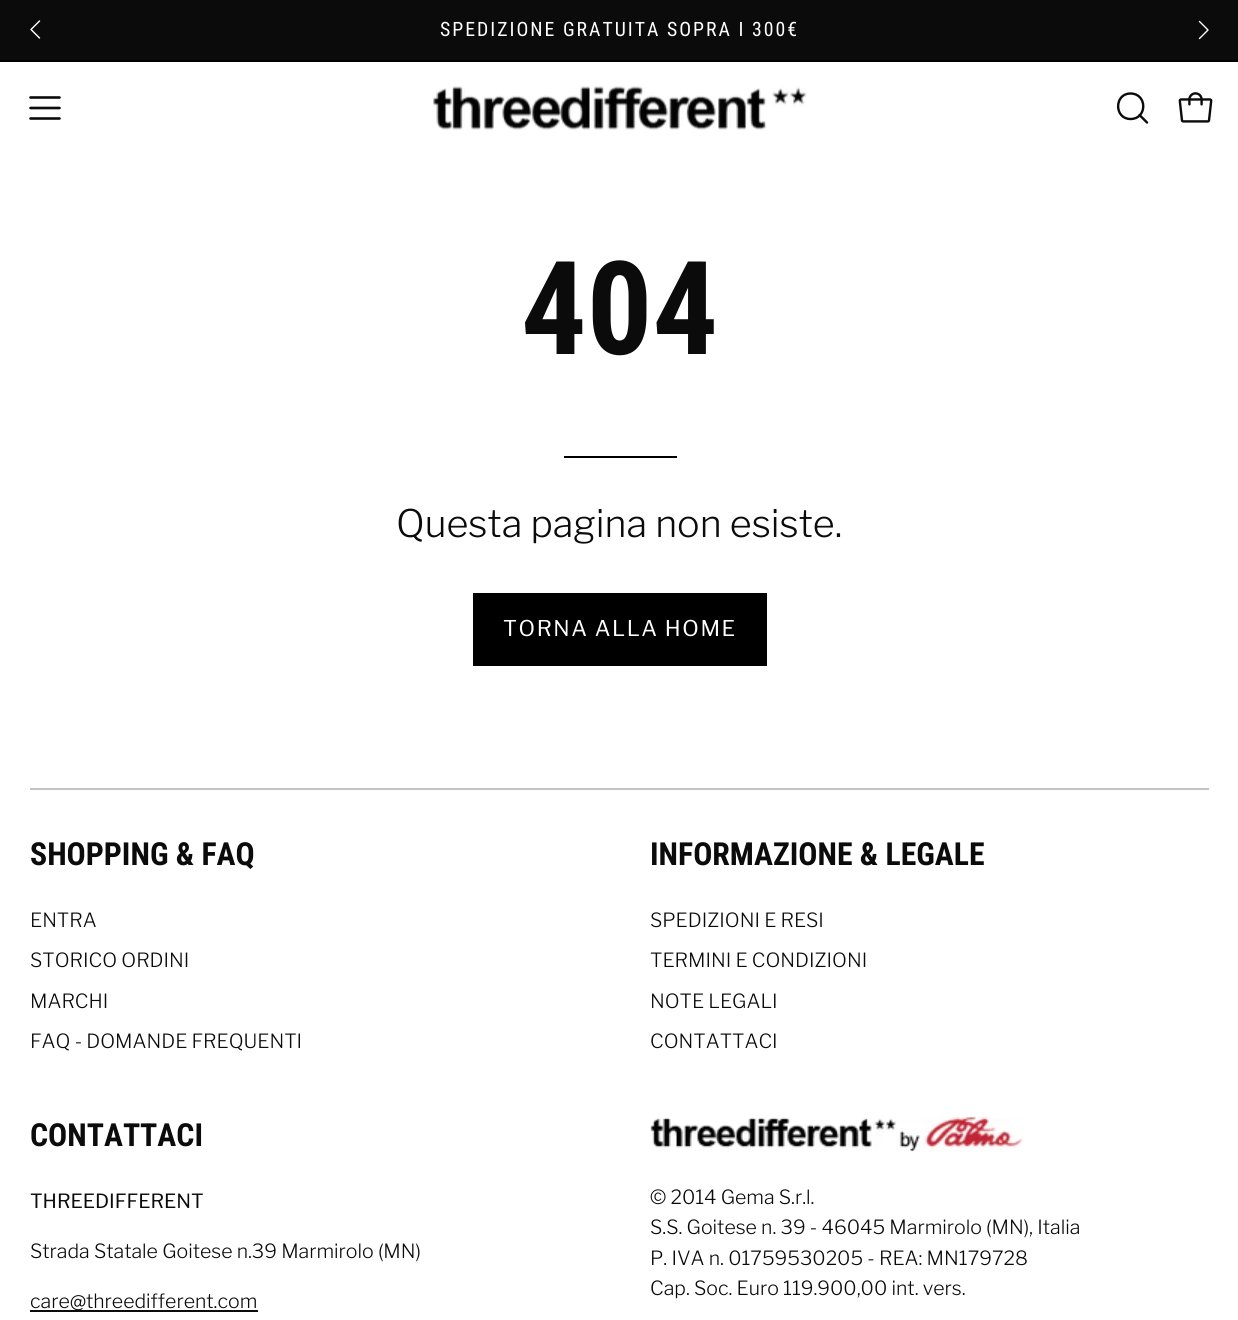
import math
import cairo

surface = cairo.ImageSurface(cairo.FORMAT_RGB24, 1238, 1320)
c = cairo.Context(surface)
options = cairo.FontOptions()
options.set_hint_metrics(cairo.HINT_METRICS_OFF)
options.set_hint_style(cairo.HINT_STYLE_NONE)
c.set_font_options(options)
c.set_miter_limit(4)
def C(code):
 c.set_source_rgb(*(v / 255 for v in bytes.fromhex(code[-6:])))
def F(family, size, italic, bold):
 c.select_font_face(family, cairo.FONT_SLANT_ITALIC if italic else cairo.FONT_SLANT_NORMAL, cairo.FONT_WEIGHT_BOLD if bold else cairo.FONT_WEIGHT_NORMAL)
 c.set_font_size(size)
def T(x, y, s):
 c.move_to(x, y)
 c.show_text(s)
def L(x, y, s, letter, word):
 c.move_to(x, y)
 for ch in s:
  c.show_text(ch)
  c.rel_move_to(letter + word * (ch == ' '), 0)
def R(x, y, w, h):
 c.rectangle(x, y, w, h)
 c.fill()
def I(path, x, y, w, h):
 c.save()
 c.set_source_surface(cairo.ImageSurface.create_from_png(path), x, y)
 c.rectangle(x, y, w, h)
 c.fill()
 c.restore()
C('ffffff')
c.paint()
C('0b0b0b')
R(0,0,1238,60)
C('000000')
R(0,60,1238,2)
c.new_path()
c.move_to(39.5,38)
c.line_to(31,29.5)
c.line_to(39.5,21)
C('ffffff')
c.set_line_width(1.4)
c.set_line_cap(cairo.LINE_CAP_ROUND)
c.set_line_join(cairo.LINE_JOIN_ROUND)
c.stroke()
F('Roboto Condensed',19.75,0,0)
L(440,36,'SPEDIZIONE GRATUITA SOPRA I 300€',2,0)
c.new_path()
c.move_to(1199.5,21.5)
c.line_to(1208,30)
c.line_to(1199.5,38.5)
c.stroke()
c.new_path()
c.move_to(30.5,108)
c.line_to(59.5,108)
c.move_to(30.5,97.5)
c.line_to(59.5,97.5)
c.move_to(30.5,118.5)
c.line_to(59.5,118.5)
C('0b0b0b')
c.set_line_width(2.6)
c.stroke()
I('1.png',433,86,374,44)
c.new_path()
c.move_to(1130.5,119)
c.curve_to(1147.5,119,1147.5,93.5,1130.5,93.5)
c.curve_to(1114,93.5,1114,119,1130.5,119)
c.close_path()
c.move_to(1139.5,115)
c.line_to(1147,122.5)
c.set_line_width(2.4)
c.stroke()
I('2.png',1178,92,35,31)
F('Roboto Condensed',130,0,1)
T(521,354,'404')
C('000000')
R(564,456,113,2)
F('Libre Franklin Light',37.75,0,0)
C('0b0b0b')
T(396,537,'Questa pagina non esiste.')
C('000000')
R(473,593,294,73)
F('Libre Franklin',21.6,0,0)
C('ffffff')
L(503,636,'TORNA ALLA HOME',1.6,0)
C('c3c3c3')
R(30,788,1179,2)
F('Roboto Condensed',31.75,0,1)
C('0b0b0b')
T(30,865,'SHOPPING & FAQ')
F('Libre Franklin Light',19.5,0,0)
T(30,927,'ENTRA')
T(30,967,'STORICO ORDINI')
T(30,1008,'MARCHI')
T(30,1048,'FAQ - DOMANDE FREQUENTI')
F('Roboto Condensed',31.75,0,1)
T(650,865,'INFORMAZIONE & LEGALE')
F('Libre Franklin Light',19.5,0,0)
T(650,927,'SPEDIZIONI E RESI')
T(650,967,'TERMINI E CONDIZIONI')
T(650,1008,'NOTE LEGALI')
T(650,1048,'CONTATTACI')
F('Roboto Condensed',31.75,0,1)
T(30,1146,'CONTATTACI')
F('Libre Franklin',19.5,0,0)
T(30,1208,'THREEDIFFERENT')
F('Libre Franklin Light',19.5,0,0)
T(30,1258,'Strada Statale Goitese n.39 Marmirolo (MN)')
R(30,1310,228,2)
T(30,1308,'care@threedifferent.com')
I('3.png',650,1116,374,36)
T(650,1204,'© 2014 Gema S.r.l.')
T(650,1234,'S.S. Goitese n. 39 - 46045 Marmirolo (MN), Italia')
T(650,1265,'P. IVA n. 01759530205 - REA: MN179728')
T(650,1295,'Cap. Soc. Euro 119.900,00 int. vers.')
surface.write_to_png('o.png')
